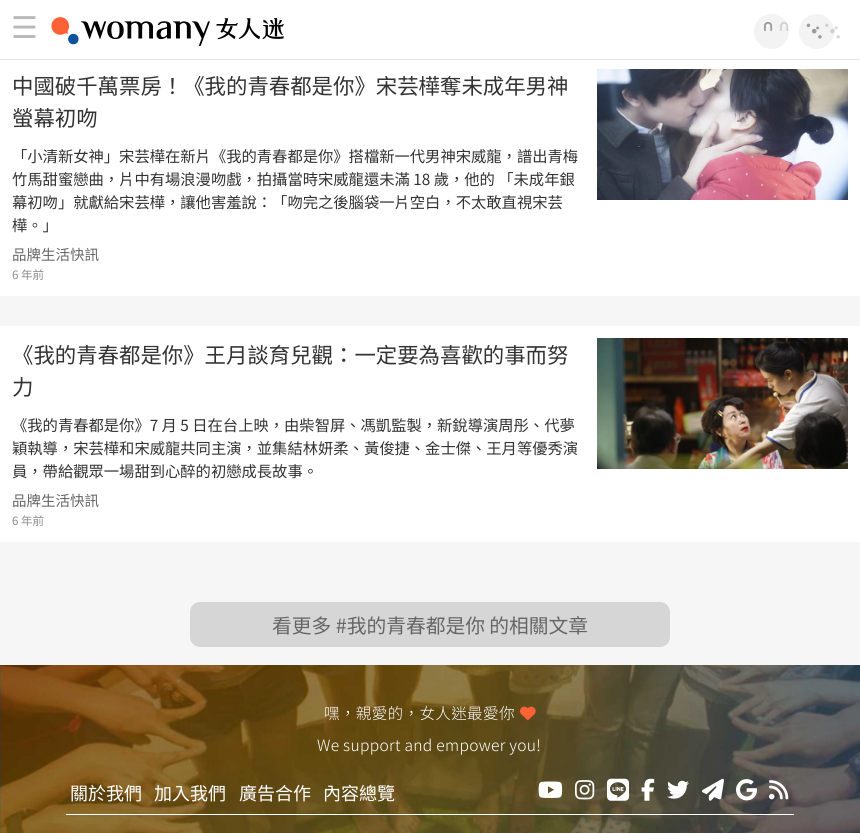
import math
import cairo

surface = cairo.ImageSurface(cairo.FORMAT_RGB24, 860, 833)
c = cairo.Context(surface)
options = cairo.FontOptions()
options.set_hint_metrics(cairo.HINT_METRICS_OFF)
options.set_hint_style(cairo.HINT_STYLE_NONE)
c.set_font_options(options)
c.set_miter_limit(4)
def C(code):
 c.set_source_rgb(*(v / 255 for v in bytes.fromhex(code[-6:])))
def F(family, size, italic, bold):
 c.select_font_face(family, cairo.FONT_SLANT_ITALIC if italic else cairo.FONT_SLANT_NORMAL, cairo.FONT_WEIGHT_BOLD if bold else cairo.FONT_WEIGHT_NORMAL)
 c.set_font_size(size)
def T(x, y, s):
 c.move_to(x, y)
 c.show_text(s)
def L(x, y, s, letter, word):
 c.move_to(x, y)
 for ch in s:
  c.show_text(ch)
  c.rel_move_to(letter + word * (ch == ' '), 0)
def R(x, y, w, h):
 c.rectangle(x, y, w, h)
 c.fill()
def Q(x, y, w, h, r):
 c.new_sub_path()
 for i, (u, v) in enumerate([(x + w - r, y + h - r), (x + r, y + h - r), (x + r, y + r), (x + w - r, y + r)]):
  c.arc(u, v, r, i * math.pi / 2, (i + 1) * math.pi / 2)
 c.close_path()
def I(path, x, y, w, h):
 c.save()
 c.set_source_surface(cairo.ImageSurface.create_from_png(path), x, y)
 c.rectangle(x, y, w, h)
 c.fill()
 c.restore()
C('f6f6f6')
c.paint()
C('ffffff')
R(0,0,860,59)
C('e3e3e3')
R(0,59,860,1)
F('DejaVu Sans',30,0,0)
C('b9b9b9')
T(11,38,'☰')
I('1.png',51,17,233,29)
C('f3f3f3')
c.arc(771.5,31.5,17,0,2 * math.pi)
c.fill_preserve()
c.set_line_width(1)
c.stroke()
I('2.png',764,22,9,9)
I('3.png',764,22,25,9)
c.arc(816.5,31.5,17,0,2 * math.pi)
c.fill_preserve()
c.stroke()
I('4.png',806,23,16,16)
I('5.png',806,23,34,16)
C('ffffff')
R(0,60,860,236)
F('Noto Sans TC',21.4,0,0)
C('333333')
T(12,94,'中國破千萬票房！《我的青春都是你》宋芸樺奪未成年男神')
T(12,126,'螢幕初吻')
I('6.png',597,69,251,131)
F('Noto Sans TC',15.3,0,0)
T(12,162,'「小清新女神」宋芸樺在新片《我的青春都是你》搭檔新一代男神宋威龍，譜出青梅')
T(12,185,'竹馬甜蜜戀曲，片中有場浪漫吻戲，拍攝當時宋威龍還未滿 18 歲，他的 「未成年銀')
T(12,208,'幕初吻」就獻給宋芸樺，讓他害羞說：「吻完之後腦袋一片空白，不太敢直視宋芸')
T(12,231,'樺。」')
F('Noto Sans TC',14.5,0,0)
C('666666')
T(12,260,'品牌生活快訊')
F('Noto Sans TC',11.5,0,0)
C('8c8c8c')
T(12,279,'6 年前')
C('ffffff')
R(0,326,860,216)
F('Noto Sans TC',21.4,0,0)
C('333333')
T(12,363,'《我的青春都是你》王月談育兒觀：一定要為喜歡的事而努')
T(12,395,'力')
I('7.png',597,338,251,131)
F('Noto Sans TC',15.3,0,0)
T(12,431,'《我的青春都是你》7 月 5 日在台上映，由柴智屏、馮凱監製，新銳導演周彤、代夢')
T(12,454,'穎執導，宋芸樺和宋威龍共同主演，並集結林妍柔、黃俊捷、金士傑、王月等優秀演')
T(12,477,'員，帶給觀眾一場甜到心醉的初戀成長故事。')
F('Noto Sans TC',14.5,0,0)
C('666666')
T(12,506,'品牌生活快訊')
F('Noto Sans TC',11.5,0,0)
C('8c8c8c')
T(12,525,'6 年前')
C('d6d6d6')
Q(190,602,480,45,10)
c.fill()
F('Noto Sans TC',19.75,0,0)
C('666666')
T(272,633,'看更多 #我的青春都是你 的相關文章')
I('8.png',0,665,860,168)
F('Noto Sans TC Light',15.6,0,0)
C('ffffff')
L(324,719,'嘿，親愛的，女人迷最愛你',.3,0)
I('9.png',520,706,16,14)
L(317,751,'We support and empower you!',.3,0)
F('Noto Sans TC',18,0,0)
T(70,800,'關於我們')
T(154,800,'加入我們')
T(239,800,'廣告合作')
T(323,800,'內容總覽')
I('10.png',538,781,25,17)
I('11.png',575,780,20,20)
I('12.png',607,778,22,23)
I('13.png',641,778,14,23)
I('14.png',667,780,22,19)
I('15.png',702,778,22,23)
I('16.png',736,779,21,22)
I('17.png',769,780,20,20)
R(66,814,728,1)
surface.write_to_png('o.png')
